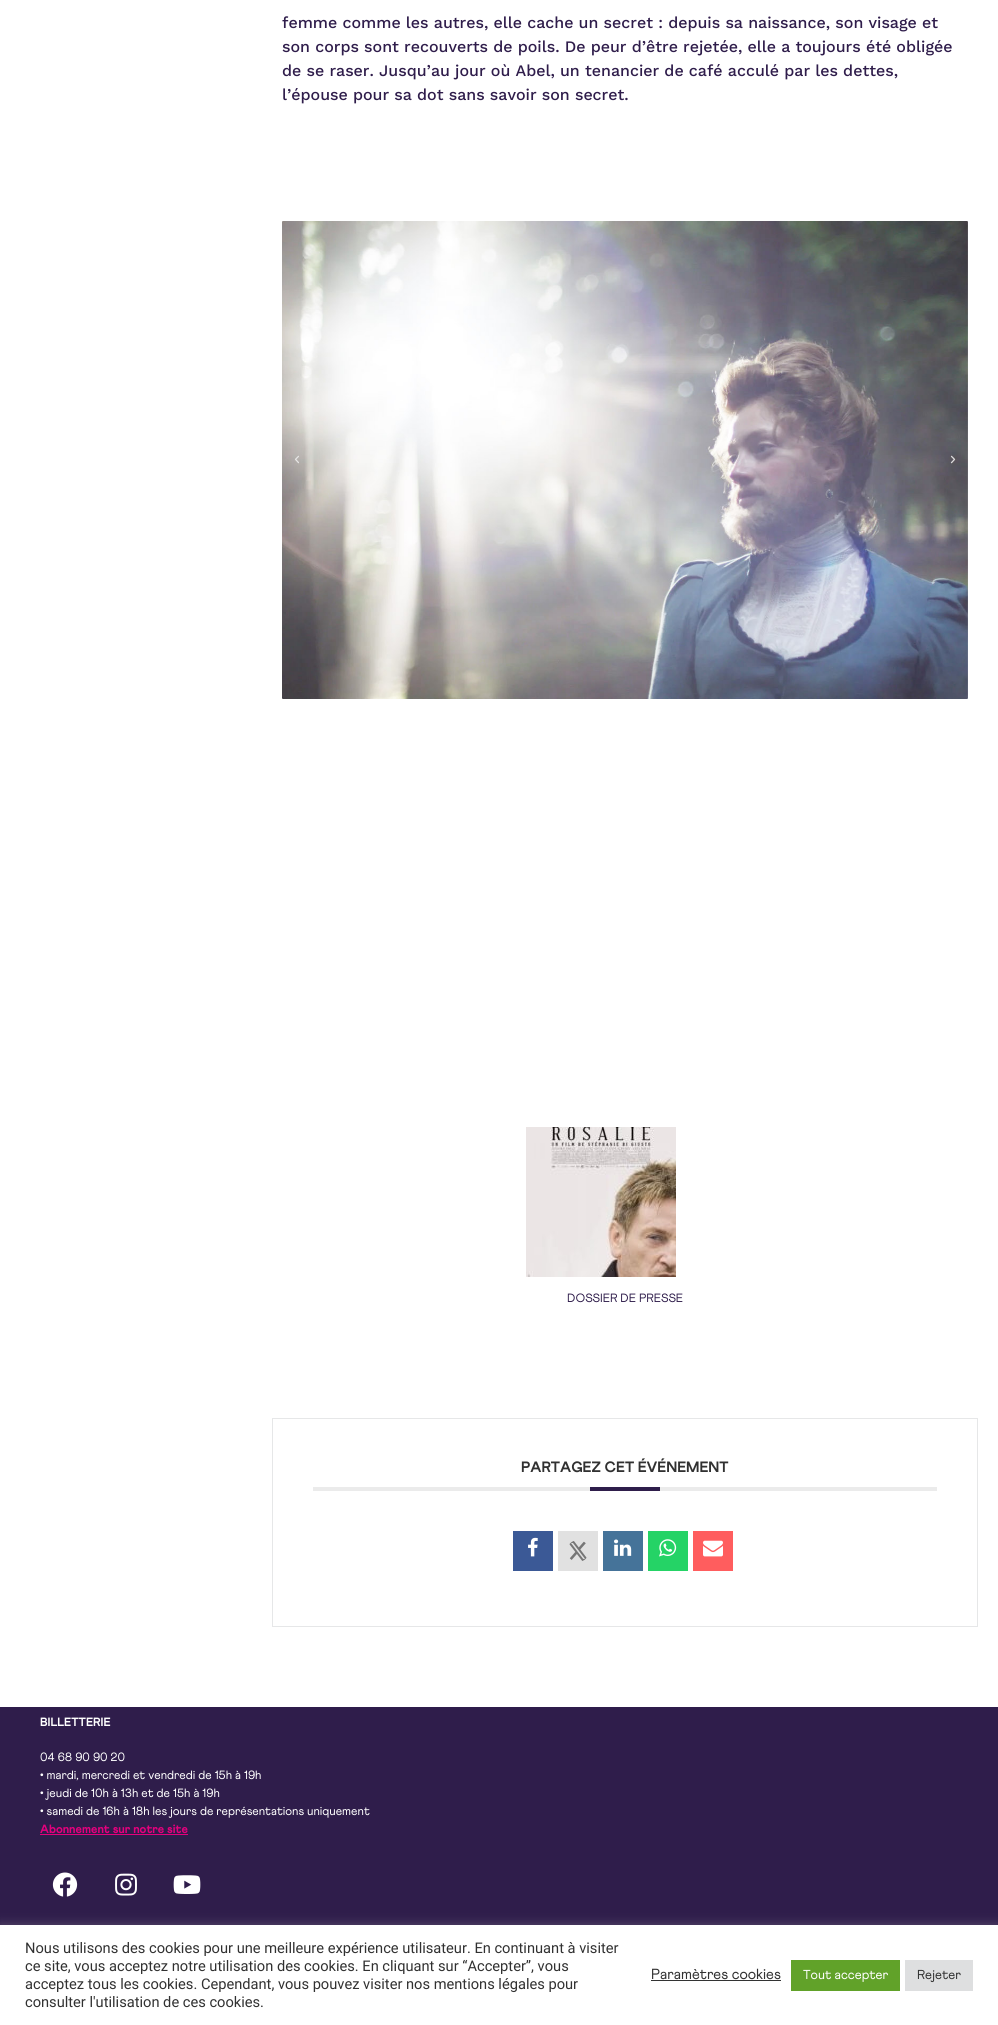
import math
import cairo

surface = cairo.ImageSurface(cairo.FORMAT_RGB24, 998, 2025)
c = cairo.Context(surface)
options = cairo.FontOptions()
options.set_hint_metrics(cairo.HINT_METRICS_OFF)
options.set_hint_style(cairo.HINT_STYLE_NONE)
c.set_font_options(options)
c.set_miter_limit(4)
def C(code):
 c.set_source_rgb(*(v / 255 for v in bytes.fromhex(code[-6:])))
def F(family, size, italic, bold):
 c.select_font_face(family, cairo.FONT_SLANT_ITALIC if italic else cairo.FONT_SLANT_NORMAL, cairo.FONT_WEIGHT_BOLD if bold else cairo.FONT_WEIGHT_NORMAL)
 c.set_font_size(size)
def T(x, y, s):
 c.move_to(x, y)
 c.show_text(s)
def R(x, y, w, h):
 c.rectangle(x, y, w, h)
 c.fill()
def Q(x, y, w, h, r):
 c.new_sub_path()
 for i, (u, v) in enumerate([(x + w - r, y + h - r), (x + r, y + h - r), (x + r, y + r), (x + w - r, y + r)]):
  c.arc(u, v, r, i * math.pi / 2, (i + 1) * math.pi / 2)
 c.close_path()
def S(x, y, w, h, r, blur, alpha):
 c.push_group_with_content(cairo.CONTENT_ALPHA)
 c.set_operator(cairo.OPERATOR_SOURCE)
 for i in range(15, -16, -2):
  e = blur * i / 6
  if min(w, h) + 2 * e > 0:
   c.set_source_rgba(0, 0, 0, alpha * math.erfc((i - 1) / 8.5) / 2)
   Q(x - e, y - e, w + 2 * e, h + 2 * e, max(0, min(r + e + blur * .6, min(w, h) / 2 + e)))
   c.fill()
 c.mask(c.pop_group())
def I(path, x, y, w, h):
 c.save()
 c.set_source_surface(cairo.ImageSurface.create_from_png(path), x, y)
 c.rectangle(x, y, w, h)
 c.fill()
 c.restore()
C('ffffff')
c.paint()
F('Work Sans Medium',16,0,0)
C('2f1d4b')
T(282,28,'femme comme les autres, elle cache un secret : depuis sa naissance, son visage et')
T(282,52,'son corps sont recouverts de poils. De peur d’être rejetée, elle a toujours été obligée')
T(282,76,'de se raser. Jusqu’au jour où Abel, un tenancier de café acculé par les dettes,')
T(282,100,'l’épouse pour sa dot sans savoir son secret.')
I('1.png',282,221,686,478)
I('2.png',295,455,4,9)
I('3.png',950,455,6,9)
I('4.png',526,1127,150,150)
F('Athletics',12,0,0)
T(567,1302,'DOSSIER DE PRESSE')
c.rectangle(272.5,1418.5,705,208)
C('e6e7e8')
c.set_line_width(1)
c.stroke()
C('ebebeb')
R(313,1487,624,4)
F('Athletics ExtraBold',15,0,0)
C('313131')
T(521,1472,'PARTAGEZ CET ÉVÉNEMENT')
C('2f1e4b')
R(590,1487,70,4)
C('3b5996')
R(513,1531,40,40)
I('5.png',528,1537,10,20)
C('e1e1e1')
R(558,1531,40,40)
I('6.png',569,1541,18,20)
C('457399')
R(603,1531,40,40)
I('7.png',614,1539,18,17)
C('25d366')
R(648,1531,40,40)
I('8.png',659,1539,18,18)
C('ff5d5e')
R(693,1531,40,40)
I('9.png',703,1540,20,17)
C('2f1d4b')
R(0,1707,998,218)
F('Athletics ExtraBold',12,0,0)
C('ffffff')
T(40,1726,'BILLETTERIE')
F('Athletics',12,0,0)
T(40,1761,'04 68 90 90 20')
T(40,1779,'• mardi, mercredi et vendredi de 15h à 19h')
T(40,1797,'• jeudi de 10h à 13h et de 15h à 19h')
T(40,1815,'• samedi de 16h à 18h les jours de représentations uniquement')
F('Athletics ExtraBold',12,0,0)
C('e5007d')
T(40,1833,'Abonnement sur notre site')
R(40,1834,148,1)
I('10.png',52,1872,26,25)
I('11.png',115,1873,22,23)
I('12.png',173,1875,28,19)
C('acabab')
S(0,1924,998,100,0,5,.3)
C('ffffff')
R(0,1925,998,100)
F('Roboto',14.65,0,0)
C('313131')
T(25,1953,'Nous utilisons des cookies pour une meilleure expérience utilisateur. En continuant à visiter')
T(25,1971,'ce site, vous acceptez notre utilisation des cookies. En cliquant sur “Accepter”, vous')
T(25,1989,'acceptez tous les cookies. Cependant, vous pouvez visiter nos mentions légales pour')
T(25,2007,'consulter l\'utilisation de ces cookies.')
F('Athletics',14.65,0,0)
T(651,1979,'Paramètres cookies')
C('333333')
R(651,1980,130,1)
C('61a229')
R(791,1960,109,31)
F('Athletics',13,0,0)
C('ffffff')
T(803,1979,'Tout accepter')
C('dedfe0')
R(905,1960,68,31)
C('313131')
T(917,1979,'Rejeter')
surface.write_to_png('o.png')
